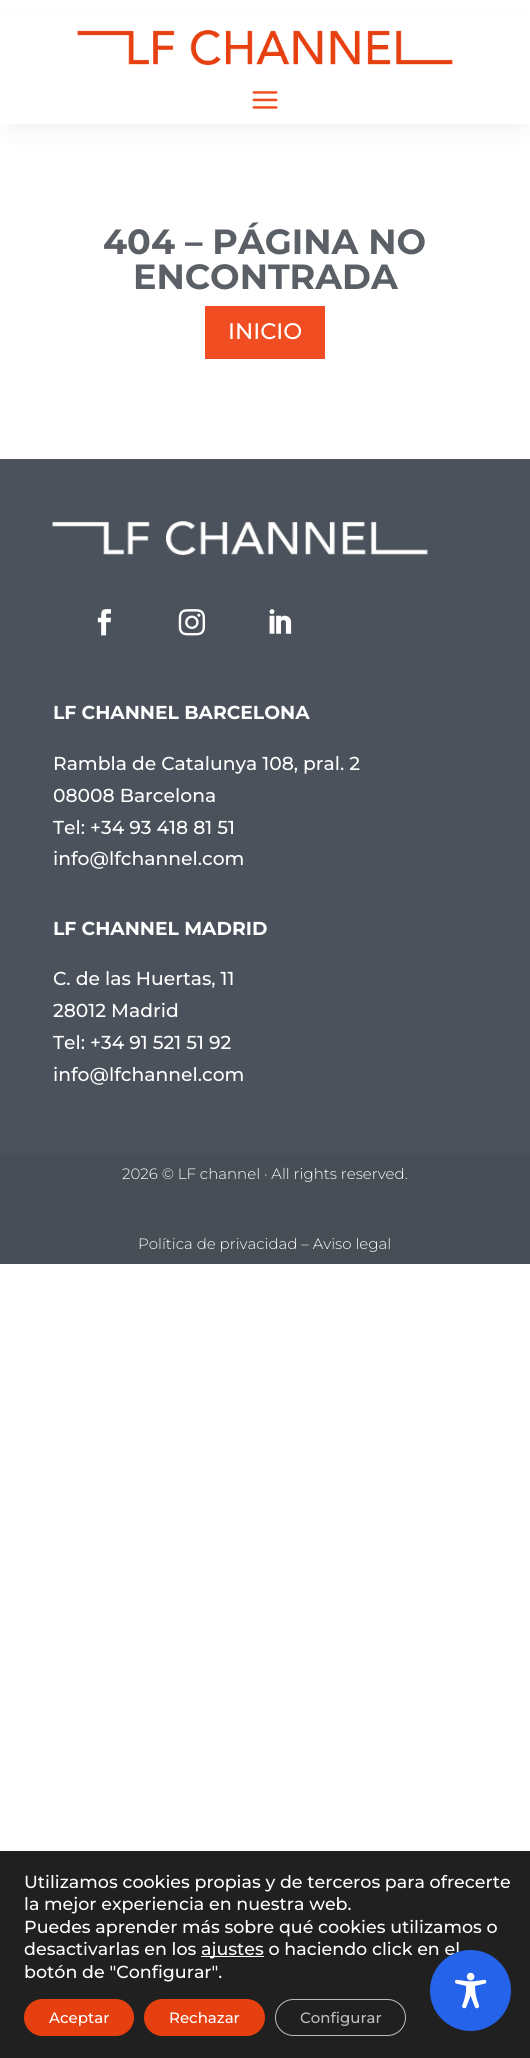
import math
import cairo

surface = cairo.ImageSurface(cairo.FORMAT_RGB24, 530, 2058)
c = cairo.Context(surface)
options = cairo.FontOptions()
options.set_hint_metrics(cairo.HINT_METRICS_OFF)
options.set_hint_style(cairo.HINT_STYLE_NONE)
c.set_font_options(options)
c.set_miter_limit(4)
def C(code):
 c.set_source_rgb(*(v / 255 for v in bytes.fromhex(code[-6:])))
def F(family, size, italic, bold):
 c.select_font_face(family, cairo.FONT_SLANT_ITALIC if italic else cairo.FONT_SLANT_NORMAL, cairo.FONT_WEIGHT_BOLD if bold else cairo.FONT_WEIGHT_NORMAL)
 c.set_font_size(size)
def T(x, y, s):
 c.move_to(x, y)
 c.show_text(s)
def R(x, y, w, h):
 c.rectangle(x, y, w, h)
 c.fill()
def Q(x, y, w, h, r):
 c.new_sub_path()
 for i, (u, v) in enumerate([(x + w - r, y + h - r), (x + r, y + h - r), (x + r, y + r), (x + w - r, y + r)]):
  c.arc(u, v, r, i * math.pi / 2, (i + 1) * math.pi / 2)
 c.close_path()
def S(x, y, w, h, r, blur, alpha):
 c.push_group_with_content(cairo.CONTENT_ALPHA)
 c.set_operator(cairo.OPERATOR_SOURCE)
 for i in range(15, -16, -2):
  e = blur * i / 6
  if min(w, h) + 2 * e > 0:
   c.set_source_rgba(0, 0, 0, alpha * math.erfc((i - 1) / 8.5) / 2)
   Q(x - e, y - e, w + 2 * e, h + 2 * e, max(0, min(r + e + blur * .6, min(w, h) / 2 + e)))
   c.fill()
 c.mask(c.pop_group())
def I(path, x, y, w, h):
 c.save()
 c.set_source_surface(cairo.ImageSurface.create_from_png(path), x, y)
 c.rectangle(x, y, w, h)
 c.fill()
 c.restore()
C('ffffff')
c.paint()
C('000000')
S(8,23,515,108,0,11,.05)
C('ffffff')
R(0,14,530,110)
I('1.png',77,30,376,35)
I('2.png',252,91,26,18)
F('Montserrat Thin',35,0,0)
C('5b5f66')
T(103,254,'404 – PÁGINA NO')
T(133,289,'ENCONTRADA')
C('f04d22')
R(205,306,120,53)
F('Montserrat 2 Thin',22.5,0,0)
C('ffffff')
T(228,339,'INICIO')
C('4b525b')
R(0,459,530,694)
I('3.png',52,521,376,34)
I('4.png',97,609,14,27)
I('5.png',178,609,27,27)
I('6.png',269,609,23,25)
F('Montserrat Thin',18.75,0,0)
C('ffffff')
T(53,719,'LF CHANNEL BARCELONA')
F('Montserrat 2 Thin',18.75,0,0)
T(53,770,'Rambla de Catalunya 108, pral. 2')
T(53,802,'08008 Barcelona')
T(53,834,'Tel: +34 93 418 81 51')
T(53,865,'info@lfchannel.com')
F('Montserrat Thin',18.75,0,0)
T(53,935,'LF CHANNEL MADRID')
F('Montserrat 2 Thin',18.75,0,0)
T(53,985,'C. de las Huertas, 11')
T(53,1017,'28012 Madrid')
T(53,1049,'Tel: +34 91 521 51 92')
T(53,1081,'info@lfchannel.com')
C('474e56')
R(0,1153,530,111)
F('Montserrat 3 Thin',15,0,0)
C('ffffff')
T(122,1179,'2026 © LF channel · All rights reserved.')
T(138,1249,'Política de privacidad – Aviso legal')
C('202020')
R(0,1851,530,207)
F('Montserrat 2 Thin',17.5,0,0)
C('ffffff')
T(24,1888,'Utilizamos cookies propias y de terceros para ofrecerte')
T(24,1910,'la mejor experiencia en nuestra web.')
T(24,1933,'Puedes aprender más sobre qué cookies utilizamos o')
T(24,1955,'desactivarlas en los')
R(201,1956,63,1)
T(201,1955,'ajustes o haciendo click en el')
T(24,1978,'botón de "Configurar".')
C('e74010')
Q(24,1999,110,37,18.5)
c.fill()
F('Montserrat 2 Thin',15,0,0)
C('ffffff')
T(49,2023,'Aceptar')
C('e74010')
Q(144,1999,121,37,18.5)
c.fill()
C('ffffff')
T(169,2023,'Rechazar')
Q(275.5,1999.5,130,36,18)
C('bcbcbc')
c.set_line_width(1)
c.stroke()
T(300,2023,'Configurar')
C('2563eb')
c.new_path()
c.arc(470.5,1990.5,40.5,0,2 * math.pi)
c.fill()
I('7.png',455,1972,32,37)
surface.write_to_png('o.png')
